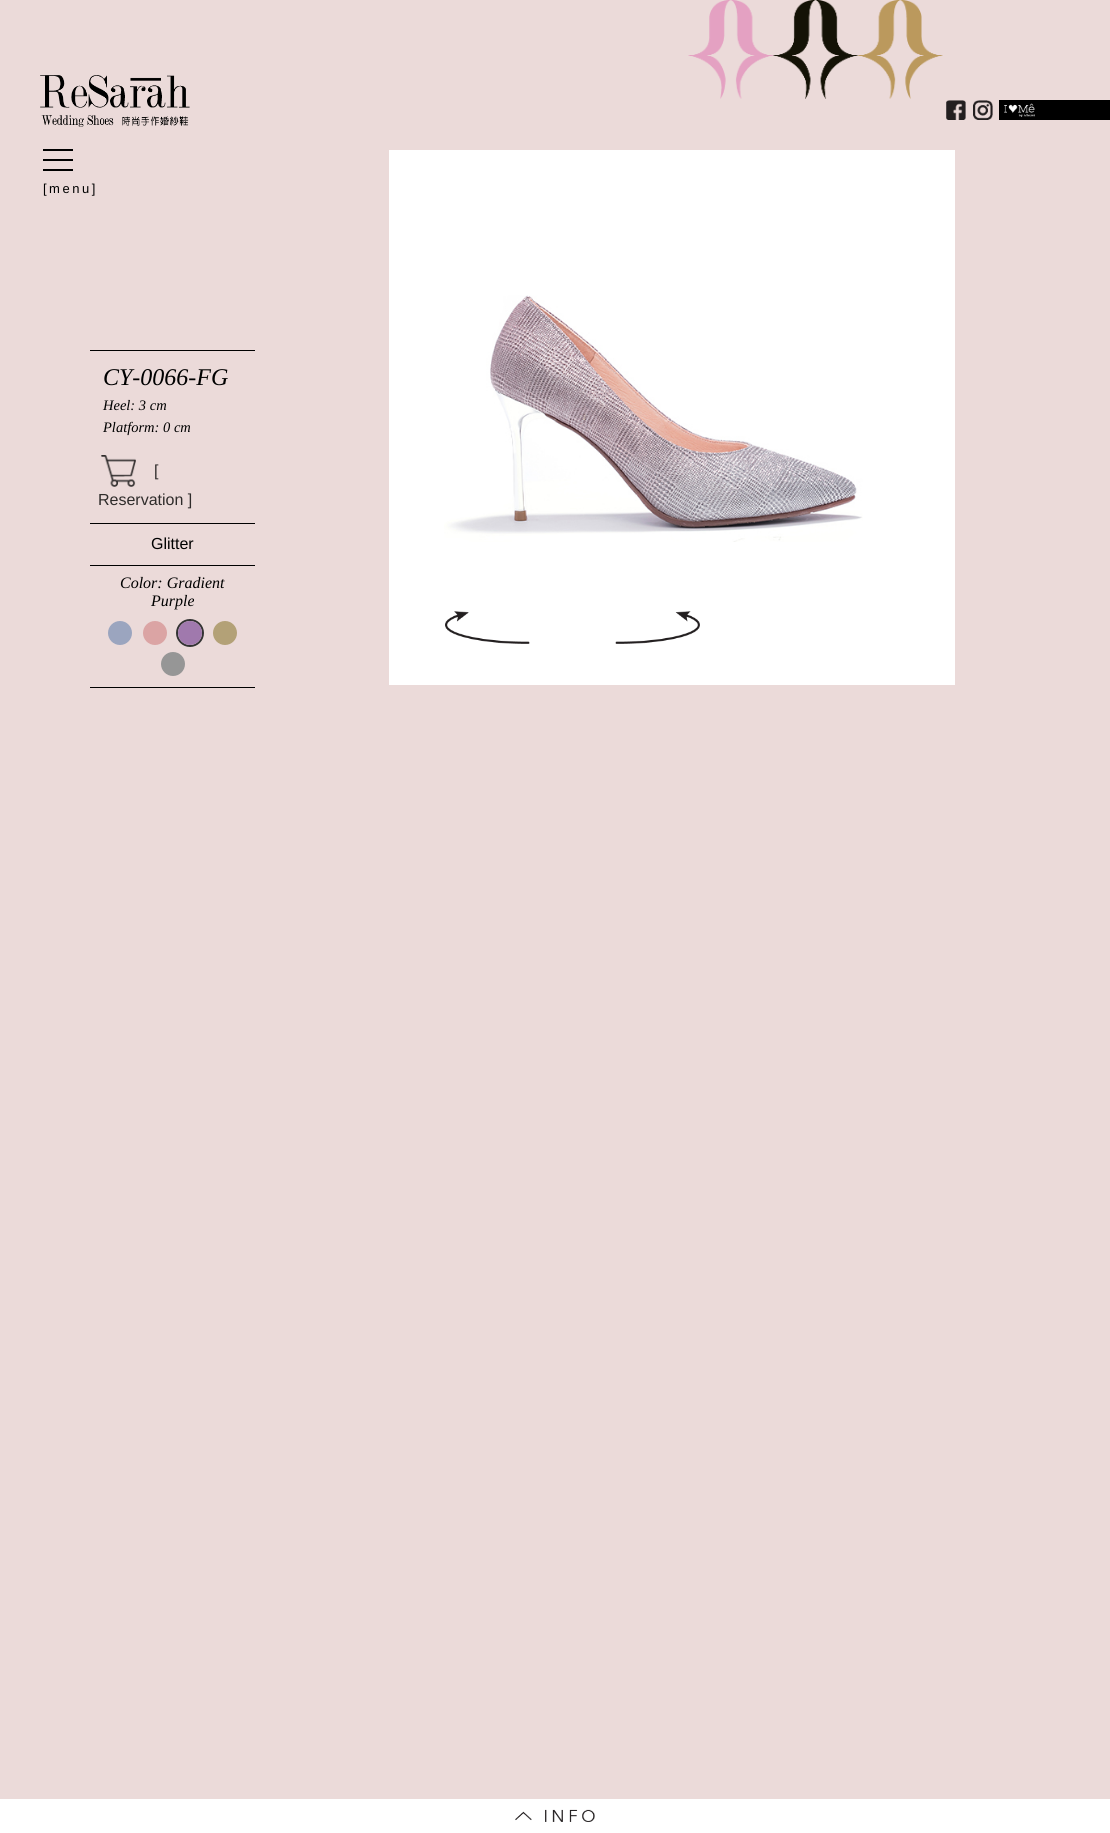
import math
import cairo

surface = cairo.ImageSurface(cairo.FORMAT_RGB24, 1110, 1833)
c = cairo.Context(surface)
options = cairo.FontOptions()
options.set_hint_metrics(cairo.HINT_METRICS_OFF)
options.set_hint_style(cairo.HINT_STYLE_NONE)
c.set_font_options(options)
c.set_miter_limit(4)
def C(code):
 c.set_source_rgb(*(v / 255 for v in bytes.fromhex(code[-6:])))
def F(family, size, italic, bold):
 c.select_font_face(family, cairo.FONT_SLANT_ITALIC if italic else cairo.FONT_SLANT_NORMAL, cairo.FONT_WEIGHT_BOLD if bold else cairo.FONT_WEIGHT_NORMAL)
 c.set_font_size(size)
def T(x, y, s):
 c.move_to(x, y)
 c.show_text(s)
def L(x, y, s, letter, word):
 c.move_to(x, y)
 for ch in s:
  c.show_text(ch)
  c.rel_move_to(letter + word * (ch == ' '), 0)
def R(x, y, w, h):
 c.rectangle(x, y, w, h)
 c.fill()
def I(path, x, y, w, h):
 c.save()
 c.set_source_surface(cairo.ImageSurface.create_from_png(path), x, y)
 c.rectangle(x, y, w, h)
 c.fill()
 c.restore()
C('ebdad9')
c.paint()
I('1.png',688,0,255,99)
I('2.png',946,100,20,20)
I('3.png',973,100,20,20)
C('000000')
R(999,100,111,20)
I('4.png',1004,103,31,14)
I('5.png',40,75,150,52)
R(43,149,30,2)
R(43,159,30,2)
R(43,169,30,2)
F('Liberation Sans',13,0,0)
L(43,193,'[menu]',2.5,0)
R(90,350,165,1)
F('Liberation Serif',24,1,0)
T(103,385,'CY-0066-FG')
F('Liberation Serif',14.5,1,0)
T(103,410,'Heel: 3 cm')
T(103,432,'Platform: 0 cm')
R(90,523,165,1)
I('6.png',101,455,35,32)
F('Liberation Sans',16,0,0)
C('2f2c2b')
T(154,476,'[')
T(98,505,'Reservation ]')
C('000000')
R(90,565,165,1)
T(151,549,'Glitter')
R(90,687,165,1)
F('Liberation Serif',16,1,0)
T(120,588,'Color: Gradient')
T(151,606,'Purple')
C('9ba5bf')
c.new_path()
c.arc(120,633,12,0,2 * math.pi)
c.fill()
C('dba4a4')
c.arc(155,633,12,0,2 * math.pi)
c.fill()
c.arc(190,633,13,0,2 * math.pi)
C('333333')
c.stroke()
C('a079ad')
c.arc(190,633,12,0,2 * math.pi)
c.fill()
C('b3a177')
c.arc(225,633,12,0,2 * math.pi)
c.fill()
C('969696')
c.arc(173,664,12,0,2 * math.pi)
c.fill()
C('ffffff')
R(389,150,566,535)
I('7.png',444,295,419,247)
I('8.png',445,611,255,33)
R(0,1799,1110,34)
I('9.png',515,1809,80,13)
surface.write_to_png('o.png')
